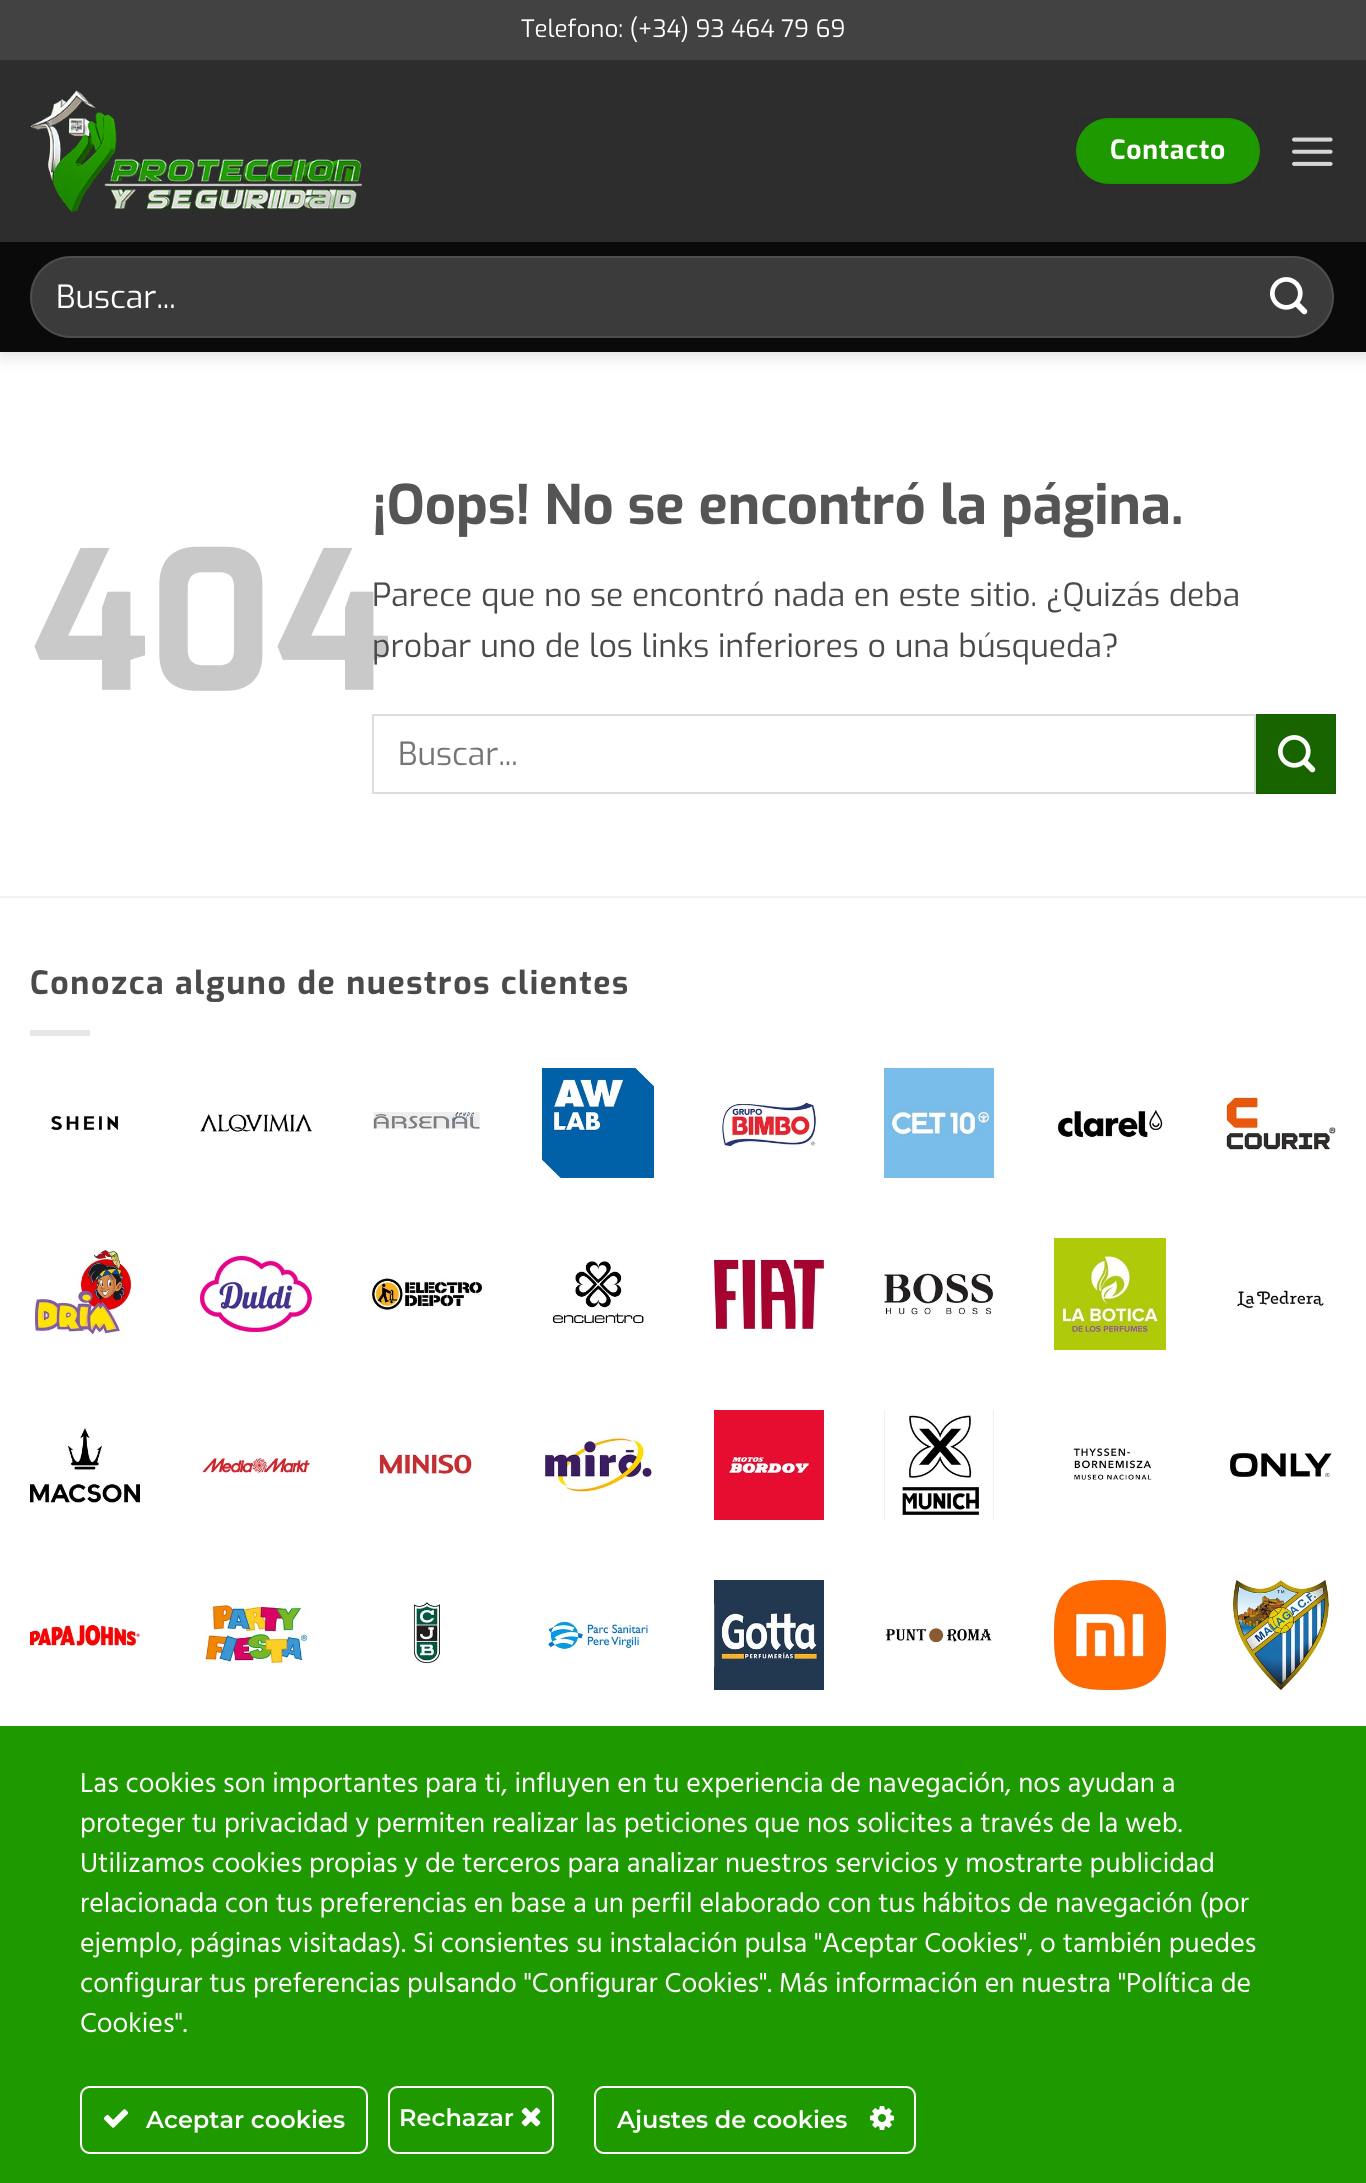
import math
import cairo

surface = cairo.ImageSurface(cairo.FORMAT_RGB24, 1366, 2183)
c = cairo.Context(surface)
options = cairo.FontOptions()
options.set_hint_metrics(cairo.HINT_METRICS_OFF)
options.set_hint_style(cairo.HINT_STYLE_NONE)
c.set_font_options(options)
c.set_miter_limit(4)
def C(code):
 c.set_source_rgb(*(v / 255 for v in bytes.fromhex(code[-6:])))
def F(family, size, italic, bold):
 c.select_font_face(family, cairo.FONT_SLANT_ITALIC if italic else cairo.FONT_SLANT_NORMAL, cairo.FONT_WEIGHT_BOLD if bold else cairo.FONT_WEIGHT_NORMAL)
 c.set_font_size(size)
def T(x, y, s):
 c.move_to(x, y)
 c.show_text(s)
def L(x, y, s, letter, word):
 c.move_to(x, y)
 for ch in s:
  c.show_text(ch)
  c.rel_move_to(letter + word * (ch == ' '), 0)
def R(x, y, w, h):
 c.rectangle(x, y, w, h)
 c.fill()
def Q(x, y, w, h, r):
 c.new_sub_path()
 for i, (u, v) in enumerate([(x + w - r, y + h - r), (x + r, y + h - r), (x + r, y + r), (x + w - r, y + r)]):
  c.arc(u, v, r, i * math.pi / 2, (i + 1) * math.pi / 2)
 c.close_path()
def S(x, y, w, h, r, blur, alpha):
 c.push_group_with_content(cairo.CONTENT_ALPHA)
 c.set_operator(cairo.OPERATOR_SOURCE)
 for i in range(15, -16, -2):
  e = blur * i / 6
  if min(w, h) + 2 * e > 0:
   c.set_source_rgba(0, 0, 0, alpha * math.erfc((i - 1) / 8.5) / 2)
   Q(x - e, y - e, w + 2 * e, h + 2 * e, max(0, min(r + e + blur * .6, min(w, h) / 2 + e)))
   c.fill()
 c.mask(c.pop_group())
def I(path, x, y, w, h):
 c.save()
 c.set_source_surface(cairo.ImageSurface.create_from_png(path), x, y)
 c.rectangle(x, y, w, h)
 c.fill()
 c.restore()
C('ffffff')
c.paint()
C('000000')
S(2,2,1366,352,0,10,.15)
C('424242')
R(0,0,1366,60)
F('Exo',24,0,0)
C('ffffff')
T(521,37,'Telefono: (+34) 93 464 79 69')
C('2d2d2d')
R(0,60,1366,182)
I('1.png',30,90,332,122)
C('1f9900')
Q(1076,118,184,66,33)
c.fill()
c.rectangle(1077,119,182,64)
c.set_source_rgba(0,0,0,0.05)
c.stroke()
F('Exo',26.5,0,1)
C('ffffff')
L(1110,159,'Contacto',.75,0)
I('2.png',1292,137,41,29)
C('0a0a0a')
R(0,242,1366,110)
C('3b3b3b')
Q(30,256,1304,82,41)
c.fill()
Q(31,257,1302,80,40)
c.set_source_rgba(1,1,1,0.09)
c.stroke()
F('Exo',32,0,0)
C('ffffff')
T(56,308,'Buscar...')
I('3.png',1270,277,38,38)
F('Exo',192,0,1)
C('c9c9c9')
T(30,690,'404')
F('Exo',54.4,0,1)
C('555555')
T(372,524,'¡Oops! No se encontró la página.')
F('Exo',32,0,0)
C('4a4a4a')
T(372,606,'Parece que no se encontró nada en este sitio. ¿Quizás deba')
T(372,657,'probar uno de los links inferiores o una búsqueda?')
c.rectangle(373,715,882,78)
C('dddddd')
c.stroke()
C('757575')
T(398,765,'Buscar...')
C('186500')
c.rectangle(1257,715,78,78)
c.fill_preserve()
C('176000')
c.stroke()
I('4.png',1278,735,38,38)
C('f2f2f2')
R(0,896,1366,2)
F('Exo',32,0,1)
C('4a4a4a')
L(30,994,'Conozca alguno de nuestros clientes',1.6,0)
C('e6e6e6')
R(30,1030,60,6)
I('5.png',49,1115,70,16)
I('6.png',200,1114,112,18)
I('7.png',373,1112,107,17)
I('8.png',542,1068,112,110)
I('9.png',721,1102,99,45)
I('10.png',884,1068,110,110)
I('11.png',1056,1110,108,28)
I('12.png',1226,1095,110,55)
I('13.png',30,1247,102,89)
I('14.png',200,1255,112,78)
I('15.png',372,1278,110,32)
I('16.png',552,1261,92,63)
I('17.png',714,1256,110,77)
I('18.png',884,1273,110,42)
I('19.png',1054,1238,112,112)
I('20.png',1237,1290,87,20)
I('21.png',30,1428,110,75)
I('22.png',200,1454,111,23)
I('23.png',375,1454,98,26)
I('24.png',542,1437,111,58)
I('25.png',714,1410,110,110)
I('26.png',884,1410,110,110)
I('27.png',1073,1447,79,33)
I('28.png',1230,1451,102,26)
I('29.png',30,1624,110,25)
I('30.png',202,1603,106,63)
I('31.png',413,1602,28,62)
I('32.png',542,1616,107,34)
I('33.png',714,1580,110,110)
I('34.png',885,1624,107,20)
I('35.png',1054,1580,112,110)
I('36.png',1232,1580,100,110)
C('1f9900')
R(0,1726,1366,457)
F('Hind',28,0,0)
C('ffffff')
T(80,1792,'Las cookies son importantes para ti, influyen en tu experiencia de navegación, nos ayudan a')
T(80,1832,'proteger tu privacidad y permiten realizar las peticiones que nos solicites a través de la web.')
T(80,1872,'Utilizamos cookies propias y de terceros para analizar nuestros servicios y mostrarte publicidad')
T(80,1912,'relacionada con tus preferencias en base a un perfil elaborado con tus hábitos de navegación (por')
T(80,1952,'ejemplo, páginas visitadas). Si consientes su instalación pulsa "Aceptar Cookies", o también puedes')
T(80,1992,'configurar tus preferencias pulsando "Configurar Cookies". Más información en nuestra "Política de')
T(80,2032,'Cookies".')
Q(81,2087,286,66,9)
c.stroke()
I('37.png',103,2109,26,19)
F('Montserrat SemiBold',24,0,0)
T(146,2128,'Aceptar cookies')
Q(389,2087,164,66,9)
c.stroke()
T(399,2126,'Rechazar')
I('38.png',521,2107,20,20)
Q(595,2087,320,66,9)
c.stroke()
T(617,2128,'Ajustes de cookies')
I('39.png',870,2106,24,24)
surface.write_to_png('o.png')
